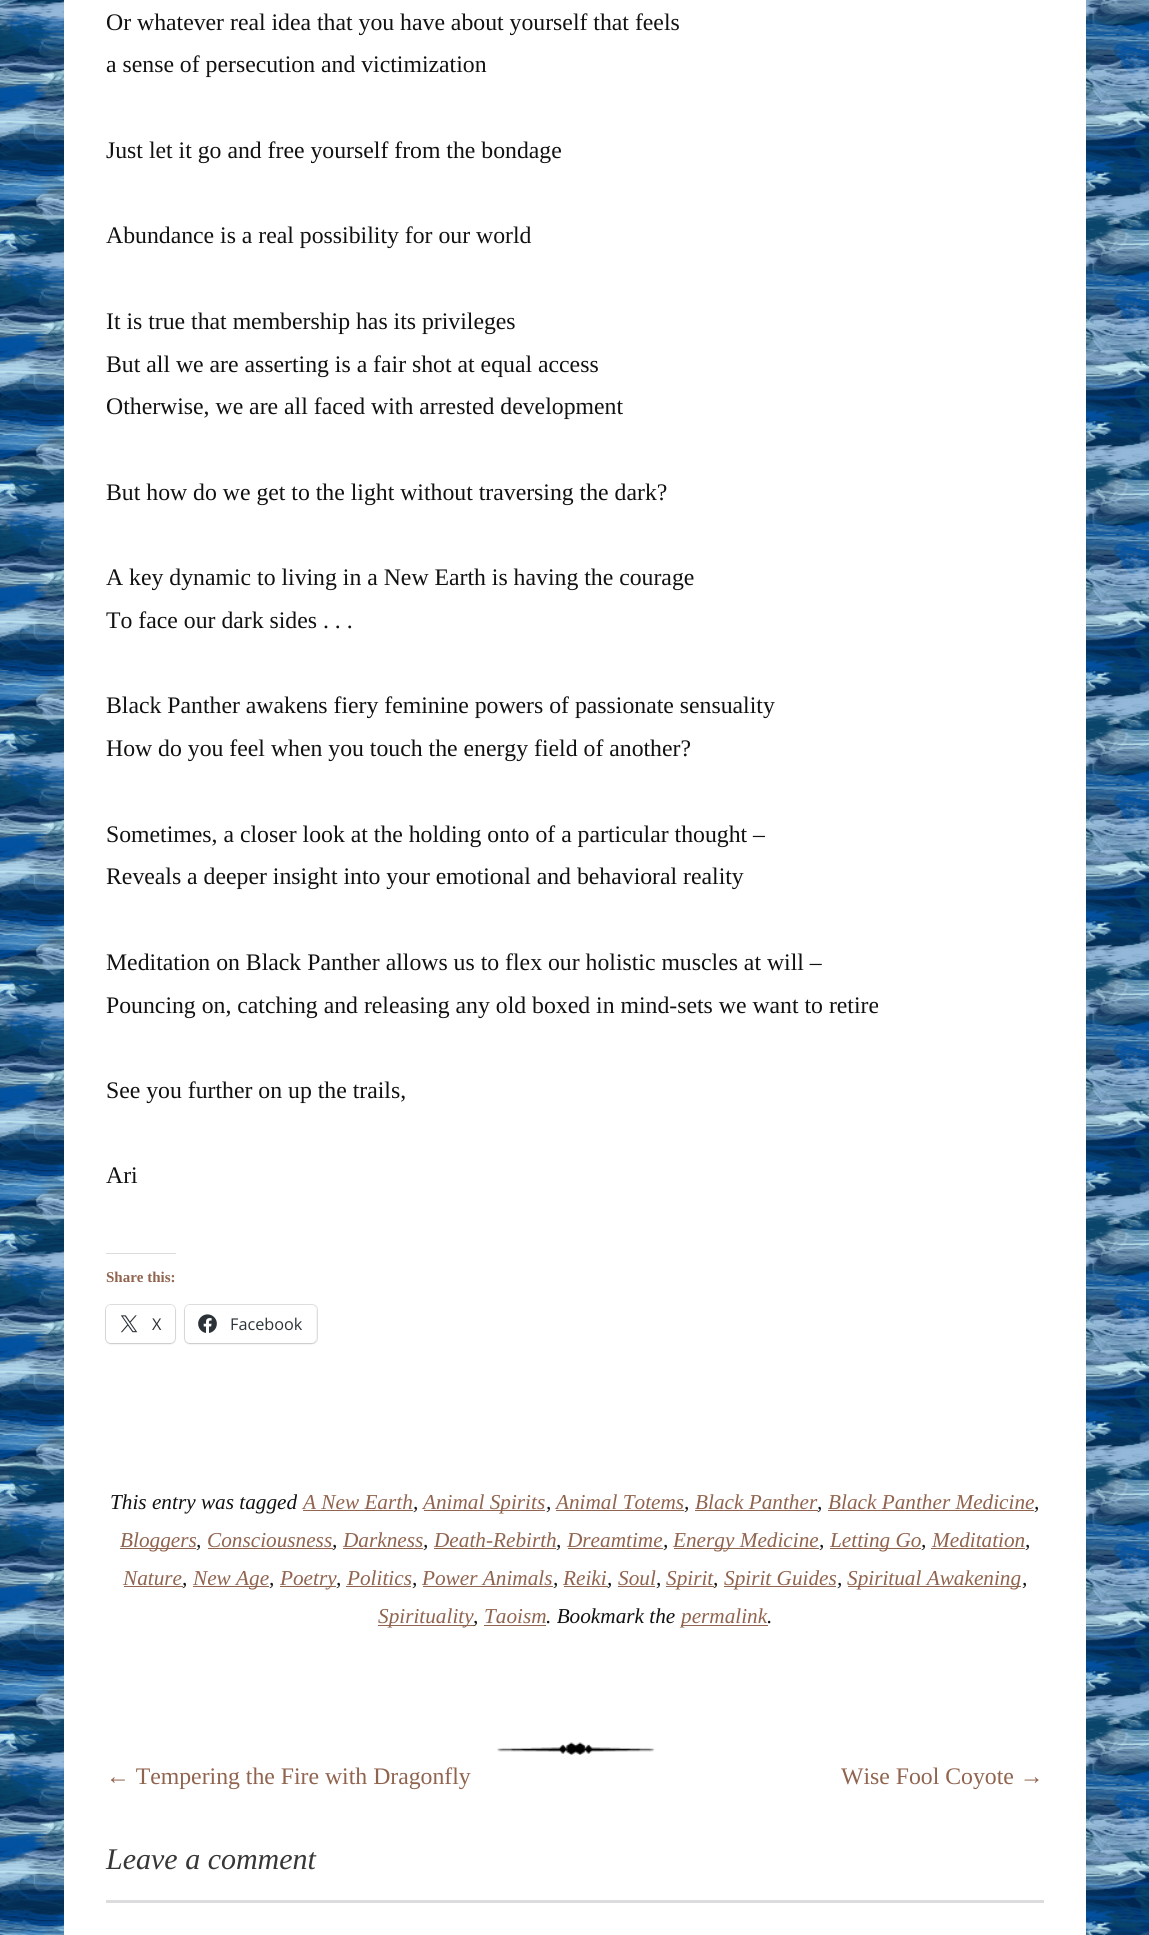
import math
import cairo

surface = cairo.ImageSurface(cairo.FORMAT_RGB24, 1149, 1935)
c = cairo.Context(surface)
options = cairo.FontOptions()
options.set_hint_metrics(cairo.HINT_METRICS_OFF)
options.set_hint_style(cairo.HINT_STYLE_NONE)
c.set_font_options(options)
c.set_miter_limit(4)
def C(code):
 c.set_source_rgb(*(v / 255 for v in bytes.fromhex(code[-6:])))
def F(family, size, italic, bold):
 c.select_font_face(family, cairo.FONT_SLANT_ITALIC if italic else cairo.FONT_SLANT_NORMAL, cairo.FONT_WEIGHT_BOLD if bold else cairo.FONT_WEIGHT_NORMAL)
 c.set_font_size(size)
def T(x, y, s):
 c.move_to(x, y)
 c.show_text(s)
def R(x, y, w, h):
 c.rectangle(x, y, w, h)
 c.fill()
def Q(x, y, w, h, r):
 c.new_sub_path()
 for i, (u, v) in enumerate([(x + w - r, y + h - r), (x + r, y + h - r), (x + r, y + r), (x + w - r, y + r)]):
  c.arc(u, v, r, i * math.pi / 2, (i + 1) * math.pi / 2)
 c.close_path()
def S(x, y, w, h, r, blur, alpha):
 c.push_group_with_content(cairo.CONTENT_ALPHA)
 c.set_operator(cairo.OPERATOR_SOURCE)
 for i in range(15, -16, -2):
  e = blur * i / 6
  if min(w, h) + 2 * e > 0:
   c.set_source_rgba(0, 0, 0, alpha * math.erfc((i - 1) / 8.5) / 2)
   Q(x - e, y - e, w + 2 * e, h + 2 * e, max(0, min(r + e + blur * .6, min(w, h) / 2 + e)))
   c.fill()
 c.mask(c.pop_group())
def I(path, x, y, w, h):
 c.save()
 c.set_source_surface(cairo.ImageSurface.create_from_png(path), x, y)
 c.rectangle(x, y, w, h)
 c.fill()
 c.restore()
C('ffffff')
c.paint()
I('1.png',0,0,1149,1935)
C('ffffff')
R(64,0,1022,1935)
I('2.png',497,1742,157,13)
F('Liberation Serif',23.75,0,0)
C('111111')
T(106,30,'Or whatever real idea that you have about yourself that feels')
T(106,72,'a sense of persecution and victimization')
T(106,158,'Just let it go and free yourself from the bondage')
T(106,243,'Abundance is a real possibility for our world')
T(106,329,'It is true that membership has its privileges')
T(106,372,'But all we are asserting is a fair shot at equal access')
T(106,414,'Otherwise, we are all faced with arrested development')
T(106,500,'But how do we get to the light without traversing the dark?')
T(106,585,'A key dynamic to living in a New Earth is having the courage')
T(106,628,'To face our dark sides . . .')
T(106,713,'Black Panther awakens fiery feminine powers of passionate sensuality')
T(106,756,'How do you feel when you touch the energy field of another?')
T(106,842,'Sometimes, a closer look at the holding onto of a particular thought –')
T(106,884,'Reveals a deeper insight into your emotional and behavioral reality')
T(106,970,'Meditation on Black Panther allows us to flex our holistic muscles at will –')
T(106,1013,'Pouncing on, catching and releasing any old boxed in mind-sets we want to retire')
T(106,1098,'See you further on up the trails,')
T(106,1183,'Ari')
C('dcdcde')
R(106,1253,70,1)
F('Liberation Serif',15,0,1)
C('90644f')
T(106,1282,'Share this:')
Q(105.5,1304.5,70,39,5.5)
C('e0e0e0')
c.set_line_width(1)
c.stroke()
C('000000')
S(106,1306,69,38,5,1,.12)
C('ffffff')
Q(106,1305,69,38,5)
c.fill()
I('3.png',120,1315,18,18)
F('Open Sans',16.25,0,0)
C('2c3338')
T(152,1330,'X')
Q(184.5,1304.5,133,39,5.5)
C('e0e0e0')
c.stroke()
C('000000')
S(185,1306,131,38,5,1,.12)
C('ffffff')
Q(185,1305,131,38,5)
c.fill()
I('4.png',198,1314,19,19)
C('2c3338')
T(230,1330,'Facebook')
F('Liberation Serif',21.25,1,0)
C('111111')
T(110,1509,'This entry was tagged')
C('90644f')
T(303,1509,'A New Earth')
R(303,1510,110,1)
C('111111')
T(413,1509,',')
C('90644f')
R(424,1510,121,1)
T(423,1509,'Animal Spirits')
C('111111')
T(546,1509,',')
C('90644f')
T(556,1509,'Animal Totems')
R(556,1510,128,1)
C('111111')
T(684,1509,',')
C('90644f')
T(695,1509,'Black Panther')
R(695,1510,123,1)
C('111111')
T(817,1509,',')
C('90644f')
T(828,1509,'Black Panther Medicine')
R(828,1510,206,1)
C('111111')
T(1034,1509,',')
C('90644f')
R(120,1548,76,1)
T(120,1547,'Bloggers')
C('111111')
T(196,1547,',')
C('90644f')
T(207,1547,'Consciousness')
R(208,1548,125,1)
C('111111')
T(332,1547,',')
C('90644f')
T(343,1547,'Darkness')
R(343,1548,80,1)
C('111111')
T(423,1547,',')
C('90644f')
T(434,1547,'Death-Rebirth')
R(434,1548,122,1)
C('111111')
T(556,1547,',')
C('90644f')
T(567,1547,'Dreamtime')
R(568,1548,95,1)
C('111111')
T(663,1547,',')
C('90644f')
R(674,1548,145,1)
T(673,1547,'Energy Medicine')
C('111111')
T(819,1547,',')
C('90644f')
R(830,1548,91,1)
T(830,1547,'Letting Go')
C('111111')
T(921,1547,',')
C('90644f')
T(932,1547,'Meditation')
R(931,1548,94,1)
C('111111')
T(1025,1547,',')
C('90644f')
T(123,1585,'Nature')
R(124,1586,59,1)
C('111111')
T(182,1585,',')
C('90644f')
R(193,1586,76,1)
T(193,1585,'New Age')
C('111111')
T(269,1585,',')
C('90644f')
R(280,1586,56,1)
T(280,1585,'Poetry')
C('111111')
T(336,1585,',')
C('90644f')
T(347,1585,'Politics')
R(346,1586,65,1)
C('111111')
T(412,1585,',')
C('90644f')
T(422,1585,'Power Animals')
R(423,1586,130,1)
C('111111')
T(553,1585,',')
C('90644f')
T(563,1585,'Reiki')
R(564,1586,44,1)
C('111111')
T(607,1585,',')
C('90644f')
T(618,1585,'Soul')
R(618,1586,37,1)
C('111111')
T(656,1585,',')
C('90644f')
R(666,1586,48,1)
T(666,1585,'Spirit')
C('111111')
T(713,1585,',')
C('90644f')
R(724,1586,112,1)
T(724,1585,'Spirit Guides')
C('111111')
T(837,1585,',')
C('90644f')
R(848,1586,173,1)
T(847,1585,'Spiritual Awakening')
C('111111')
T(1022,1585,',')
C('90644f')
R(378,1625,96,1)
T(378,1623,'Spirituality')
C('111111')
T(473,1623,',')
C('90644f')
T(484,1623,'Taoism')
R(484,1625,62,1)
C('111111')
T(546,1623,'. Bookmark the')
C('90644f')
R(681,1625,87,1)
T(681,1623,'permalink')
C('111111')
T(767,1623,'.')
F('Liberation Serif',23.75,0,0)
C('90644f')
T(106,1784,'← Tempering the Fire with Dragonfly')
T(841,1784,'Wise Fool Coyote →')
F('Liberation Serif',30,1,0)
C('373737')
T(106,1869,'Leave a comment')
C('dcdcde')
R(106,1900,938,3)
surface.write_to_png('o.png')
